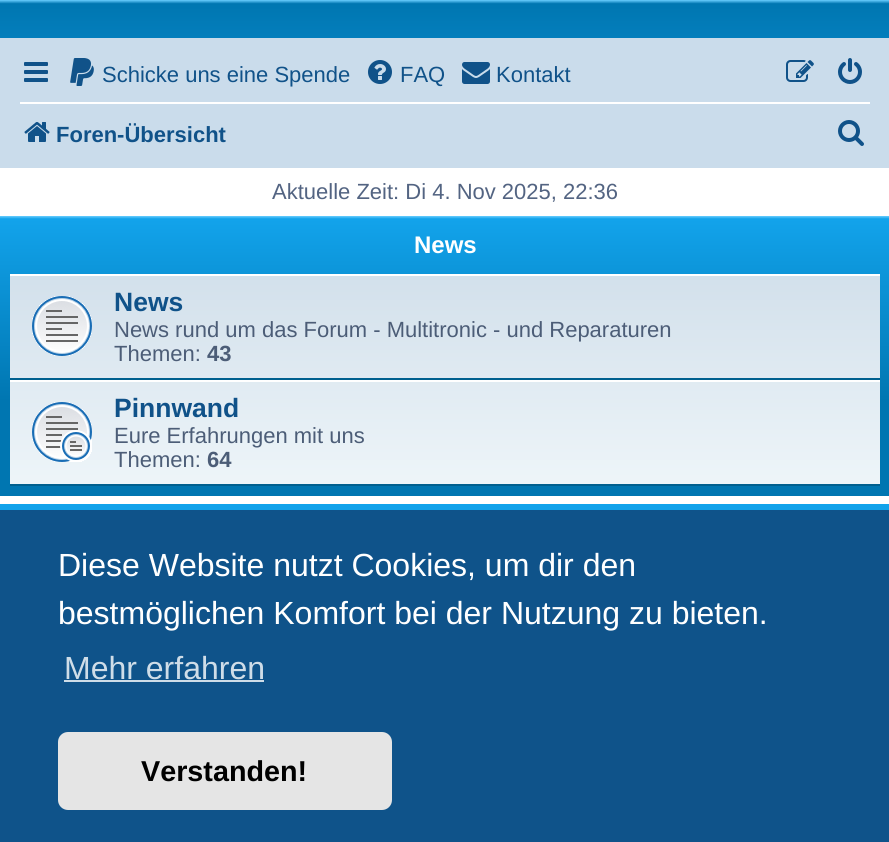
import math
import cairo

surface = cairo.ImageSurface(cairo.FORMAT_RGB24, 889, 842)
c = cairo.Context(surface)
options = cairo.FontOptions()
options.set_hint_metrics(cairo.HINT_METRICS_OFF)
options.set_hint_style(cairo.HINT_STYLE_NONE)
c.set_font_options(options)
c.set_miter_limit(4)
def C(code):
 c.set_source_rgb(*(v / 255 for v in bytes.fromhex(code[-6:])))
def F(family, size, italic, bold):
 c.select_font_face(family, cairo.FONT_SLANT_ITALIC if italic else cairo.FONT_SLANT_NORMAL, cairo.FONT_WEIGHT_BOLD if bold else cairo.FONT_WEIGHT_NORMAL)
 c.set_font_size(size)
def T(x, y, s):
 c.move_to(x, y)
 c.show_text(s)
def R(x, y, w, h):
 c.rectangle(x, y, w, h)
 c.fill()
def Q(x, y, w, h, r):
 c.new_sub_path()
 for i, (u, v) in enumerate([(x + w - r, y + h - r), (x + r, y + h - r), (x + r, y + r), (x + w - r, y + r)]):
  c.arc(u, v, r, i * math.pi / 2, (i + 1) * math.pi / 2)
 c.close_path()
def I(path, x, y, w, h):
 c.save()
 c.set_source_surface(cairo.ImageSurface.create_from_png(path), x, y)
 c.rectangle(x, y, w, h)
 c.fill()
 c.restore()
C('ffffff')
c.paint()
gradient = cairo.LinearGradient(445,0,445,184)
gradient.add_color_stop_rgba(0,0.416,0.808,1,1)
gradient.add_color_stop_rgba(.02,0,0.463,0.694,1)
gradient.add_color_stop_rgba(1,0.071,0.639,0.922,1)
c.set_source(gradient)
R(0,0,889,38)
C('cadceb')
R(0,38,889,130)
I('1.png',24,62,24,20)
I('2.png',70,58,24,28)
F('Liberation Sans',22,0,0)
C('105289')
T(102,82,'Schicke uns eine Spende')
I('3.png',368,60,24,24)
T(400,82,'FAQ')
I('4.png',462,62,28,22)
T(496,82,'Kontakt')
I('5.png',786,60,28,22)
I('6.png',838,58,24,26)
C('ffffff')
R(20,102,850,2)
I('7.png',24,122,26,20)
F('Liberation Sans',22,0,1)
C('105289')
T(56,142,'Foren-Übersicht')
I('8.png',838,120,26,26)
F('Liberation Sans',22,0,0)
C('536482')
T(272,199,'Aktuelle Zeit: Di 4. Nov 2025, 22:36')
gradient = cairo.LinearGradient(445,216,445,496)
gradient.add_color_stop_rgba(0,0.416,0.808,1,1)
gradient.add_color_stop_rgba(.01,0.071,0.639,0.922,1)
gradient.add_color_stop_rgba(.66,0,0.463,0.694,1)
gradient.add_color_stop_rgba(1,0,0.463,0.694,1)
c.set_source(gradient)
R(0,216,889,280)
F('Liberation Sans',24,0,1)
C('ffffff')
T(414,253,'News')
gradient = cairo.LinearGradient(445,274,445,486)
gradient.add_color_stop_rgba(0,0.824,0.878,0.922,1)
gradient.add_color_stop_rgba(1,0.933,0.961,0.976,1)
c.set_source(gradient)
R(10,276,870,208)
C('ffffff')
R(10,274,870,2)
C('00608f')
R(10,378,870,2)
I('9.png',32,296,60,60)
F('Liberation Sans',26.5,0,1)
C('105289')
T(114,311,'News')
F('Liberation Sans',22,0,0)
C('4c5d77')
T(114,337,'News rund um das Forum - Multitronic - und Reparaturen')
T(114,361,'Themen:')
F('Liberation Sans',22,0,1)
T(207,361,'43')
C('ffffff')
R(10,380,870,2)
C('00608f')
R(10,484,870,2)
I('10.png',32,402,60,60)
F('Liberation Sans',26.5,0,1)
C('105289')
T(114,417,'Pinnwand')
F('Liberation Sans',22,0,0)
C('4c5d77')
T(114,443,'Eure Erfahrungen mit uns')
T(114,467,'Themen:')
F('Liberation Sans',22,0,1)
T(207,467,'64')
gradient = cairo.LinearGradient(445,504,445,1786)
gradient.add_color_stop_rgba(0,0.416,0.808,1,1)
gradient.add_color_stop_rgba(0,0.071,0.639,0.922,1)
gradient.add_color_stop_rgba(.14,0,0.463,0.694,1)
gradient.add_color_stop_rgba(1,0,0.463,0.694,1)
c.set_source(gradient)
R(0,504,889,6)
C('0f538a')
R(0,510,889,332)
F('Liberation Sans',32,0,0)
C('ffffff')
T(58,576,'Diese Website nutzt Cookies, um dir den')
T(58,624,'bestmöglichen Komfort bei der Nutzung zu bieten.')
C('cfdde8')
T(64,679,'Mehr erfahren')
R(64,680,200,2)
C('e5e5e5')
Q(58,732,334,78,10)
c.fill()
F('Liberation Sans',28.75,0,1)
C('000000')
T(141,781,'Verstanden!')
surface.write_to_png('o.png')
